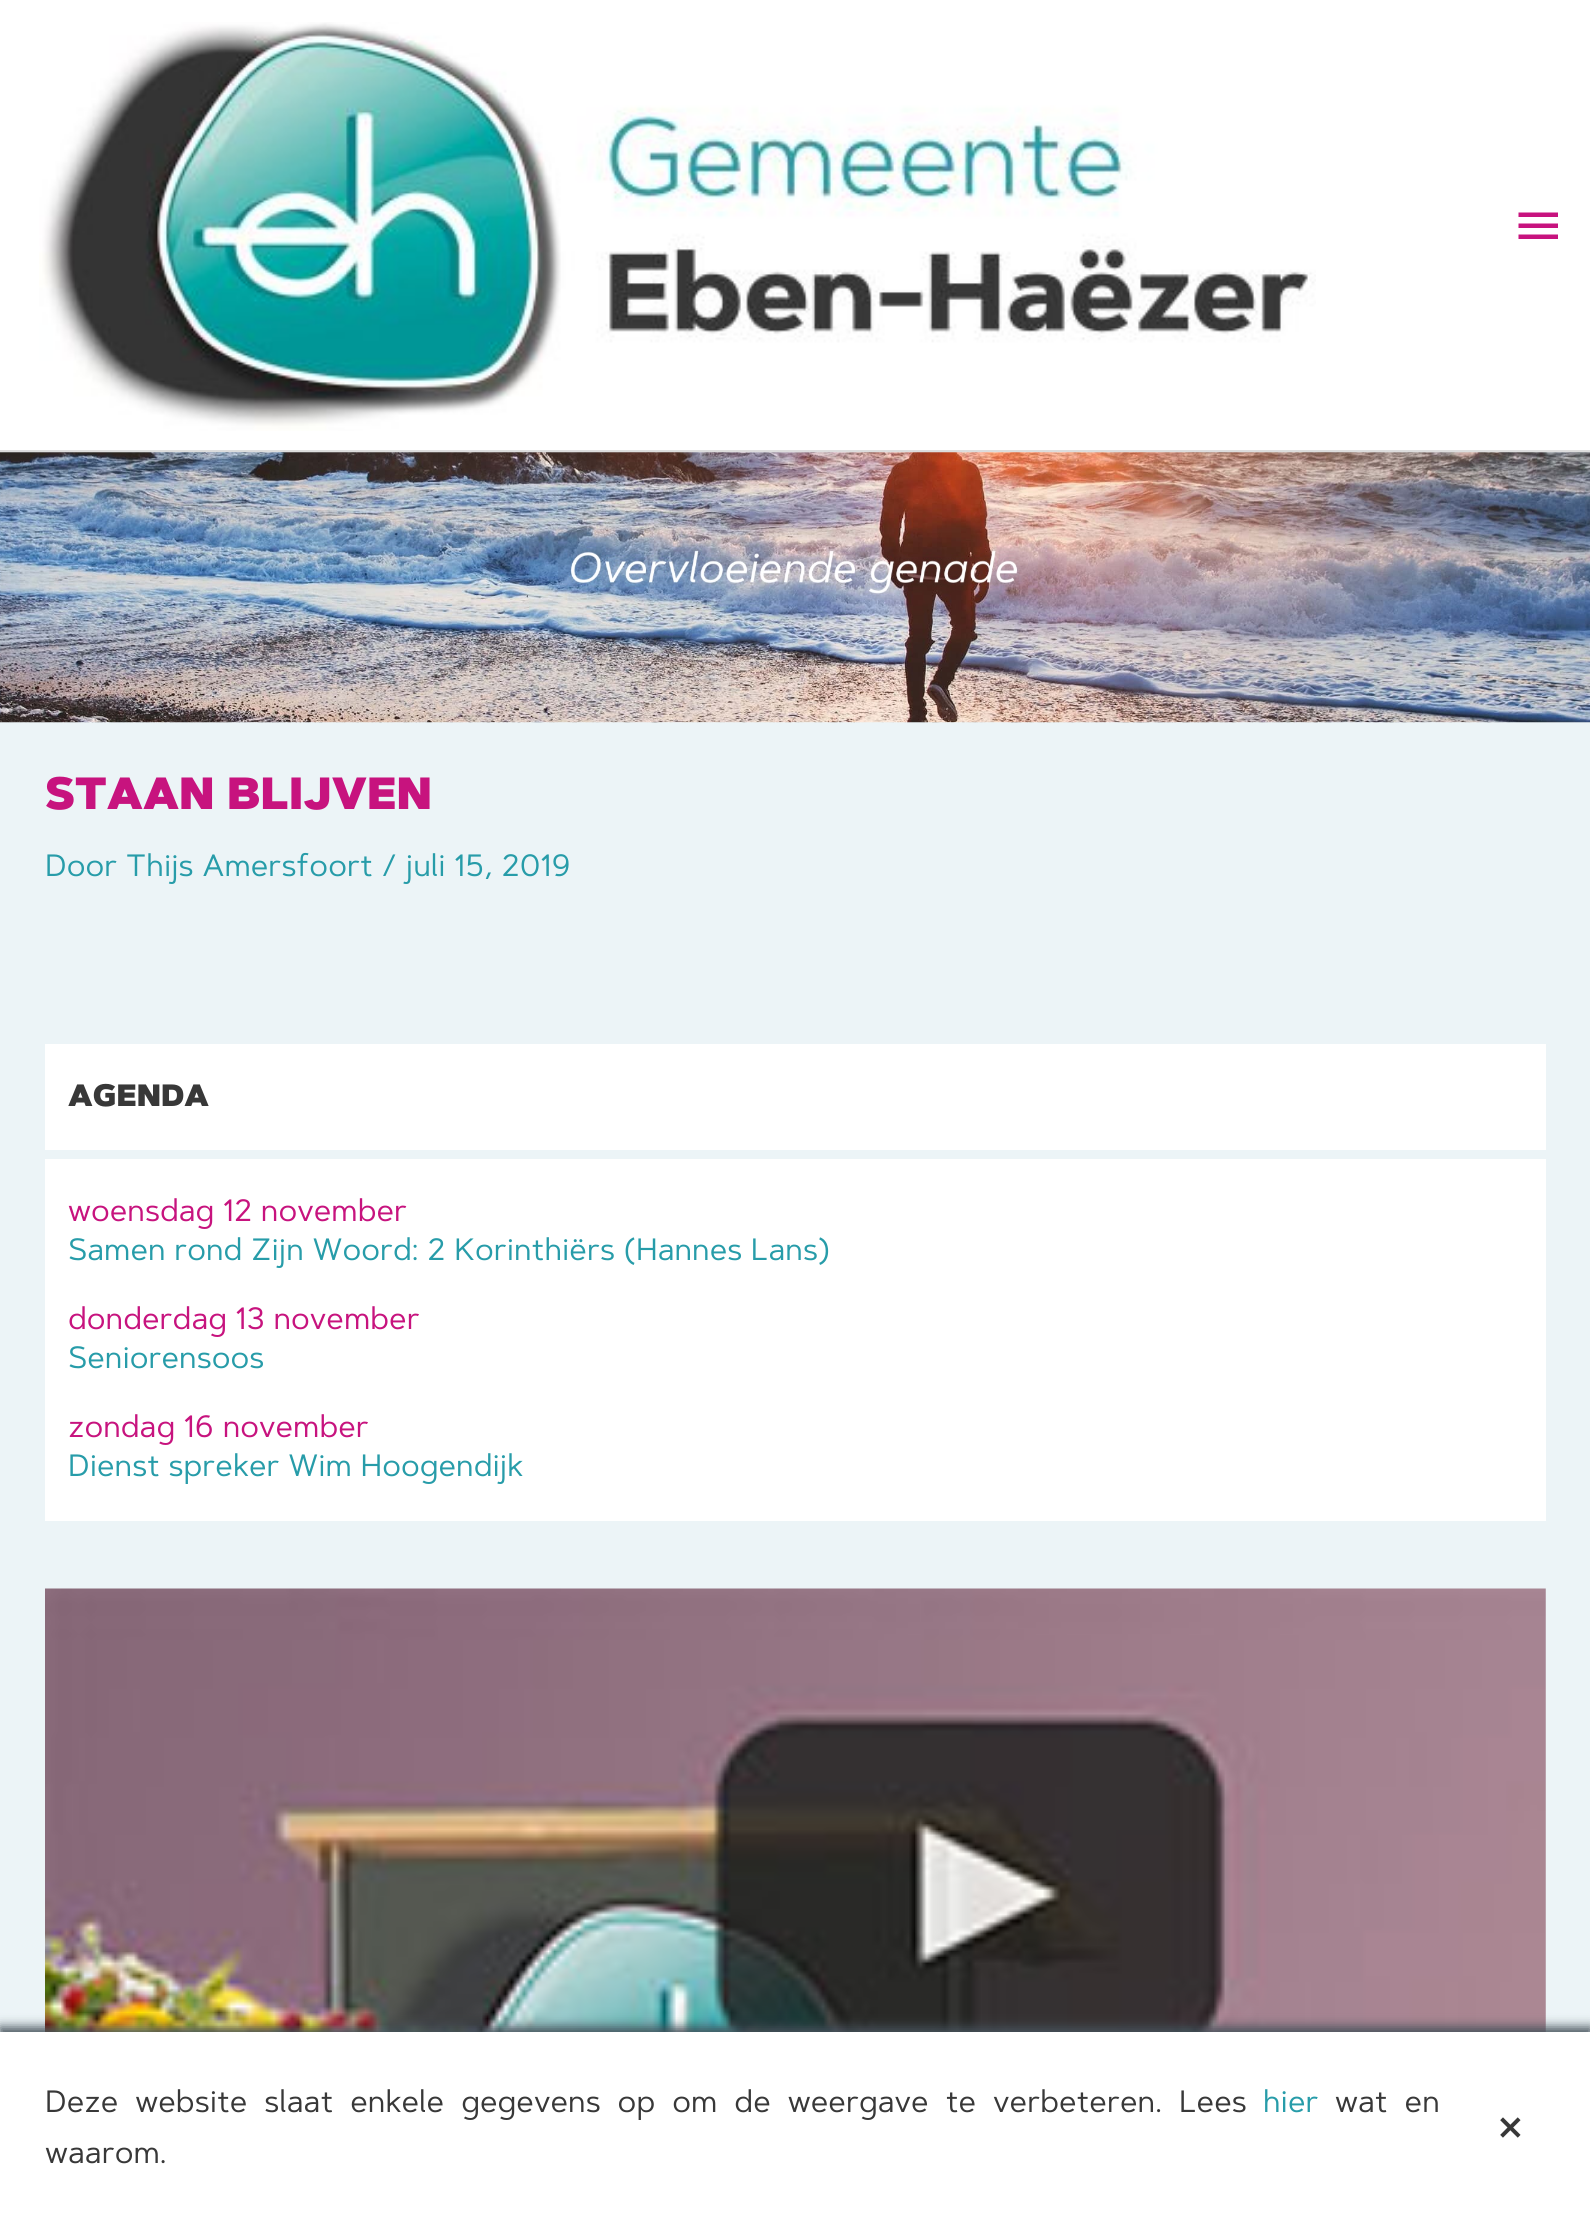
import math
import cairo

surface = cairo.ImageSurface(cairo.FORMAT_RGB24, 1590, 2222)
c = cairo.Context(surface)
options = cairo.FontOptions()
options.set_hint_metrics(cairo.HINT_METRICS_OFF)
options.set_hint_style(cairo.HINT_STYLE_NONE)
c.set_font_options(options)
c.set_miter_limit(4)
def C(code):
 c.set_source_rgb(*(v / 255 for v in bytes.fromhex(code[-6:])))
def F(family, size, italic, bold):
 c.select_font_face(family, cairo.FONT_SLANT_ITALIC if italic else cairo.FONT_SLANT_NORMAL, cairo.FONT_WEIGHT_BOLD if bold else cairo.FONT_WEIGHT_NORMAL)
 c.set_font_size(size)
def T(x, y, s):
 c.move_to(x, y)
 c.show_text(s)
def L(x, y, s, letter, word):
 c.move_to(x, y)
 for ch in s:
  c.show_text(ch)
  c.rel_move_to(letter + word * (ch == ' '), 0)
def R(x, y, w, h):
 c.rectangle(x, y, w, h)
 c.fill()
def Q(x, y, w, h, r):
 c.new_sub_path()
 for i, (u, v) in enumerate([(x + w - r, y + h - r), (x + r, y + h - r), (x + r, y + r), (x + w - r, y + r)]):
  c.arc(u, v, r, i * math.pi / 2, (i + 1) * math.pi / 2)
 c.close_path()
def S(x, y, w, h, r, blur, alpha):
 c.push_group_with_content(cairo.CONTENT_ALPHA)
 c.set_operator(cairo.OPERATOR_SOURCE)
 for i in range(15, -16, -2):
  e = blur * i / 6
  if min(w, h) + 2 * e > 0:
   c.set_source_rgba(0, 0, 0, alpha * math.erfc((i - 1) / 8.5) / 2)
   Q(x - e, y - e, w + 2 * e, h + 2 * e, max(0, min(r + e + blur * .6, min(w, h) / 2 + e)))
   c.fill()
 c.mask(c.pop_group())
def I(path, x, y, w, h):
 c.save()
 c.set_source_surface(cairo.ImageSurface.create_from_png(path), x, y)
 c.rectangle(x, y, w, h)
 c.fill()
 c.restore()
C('ecf4f7')
c.paint()
C('ffffff')
R(0,0,1590,450)
C('dddddd')
R(0,450,1590,2)
I('1.png',39,22,1277,409)
C('c7137e')
c.new_path()
c.move_to(1518.5,212.5)
c.line_to(1558,212.5)
c.line_to(1558,217)
c.line_to(1518.5,217)
c.close_path()
c.move_to(1518.5,228)
c.line_to(1518.5,223.5)
c.line_to(1558,223.5)
c.line_to(1558,228)
c.close_path()
c.move_to(1518.5,239)
c.line_to(1518.5,234.5)
c.line_to(1558,234.5)
c.line_to(1558,239)
c.close_path()
c.fill()
I('2.png',0,452,1590,271)
F('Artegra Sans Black',45,0,0)
T(45,809,'STAAN BLIJVEN')
F('Artegra Sans',30.8,0,0)
C('279ca9')
T(45,876,'Door Thijs Amersfoort / juli 15, 2019')
C('ffffff')
R(45,1044,1501,106)
F('Artegra Sans Black',30.8,0,0)
C('383838')
T(68,1106,'AGENDA')
C('ffffff')
R(45,1159,1501,362)
F('Artegra Sans',30.8,0,0)
C('c7137e')
T(68,1221,'woensdag 12 november')
C('279ca9')
T(68,1260,'Samen rond Zijn Woord: 2 Korinthiërs (Hannes Lans)')
C('c7137e')
T(68,1329,'donderdag 13 november')
C('279ca9')
T(68,1368,'Seniorensoos')
C('c7137e')
T(68,1437,'zondag 16 november')
C('279ca9')
T(68,1476,'Dienst spreker Wim Hoogendijk')
I('3.png',45,1588,1501,444)
C('45515a')
S(0,2027,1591,192,0,5.5,1)
C('ffffff')
R(0,2032,1590,190)
C('383838')
L(45,2112,'Deze website slaat enkele gegevens op om de weergave te verbeteren. Lees',0,8.4)
C('279ca9')
T(1263,2112,'hier')
C('383838')
L(1335,2112,'wat en',0,8.4)
F('Artegra Sans',54,0,0)
T(1497,2145,'×')
F('Artegra Sans',30.8,0,0)
T(45,2163,'waarom.')
surface.write_to_png('o.png')
